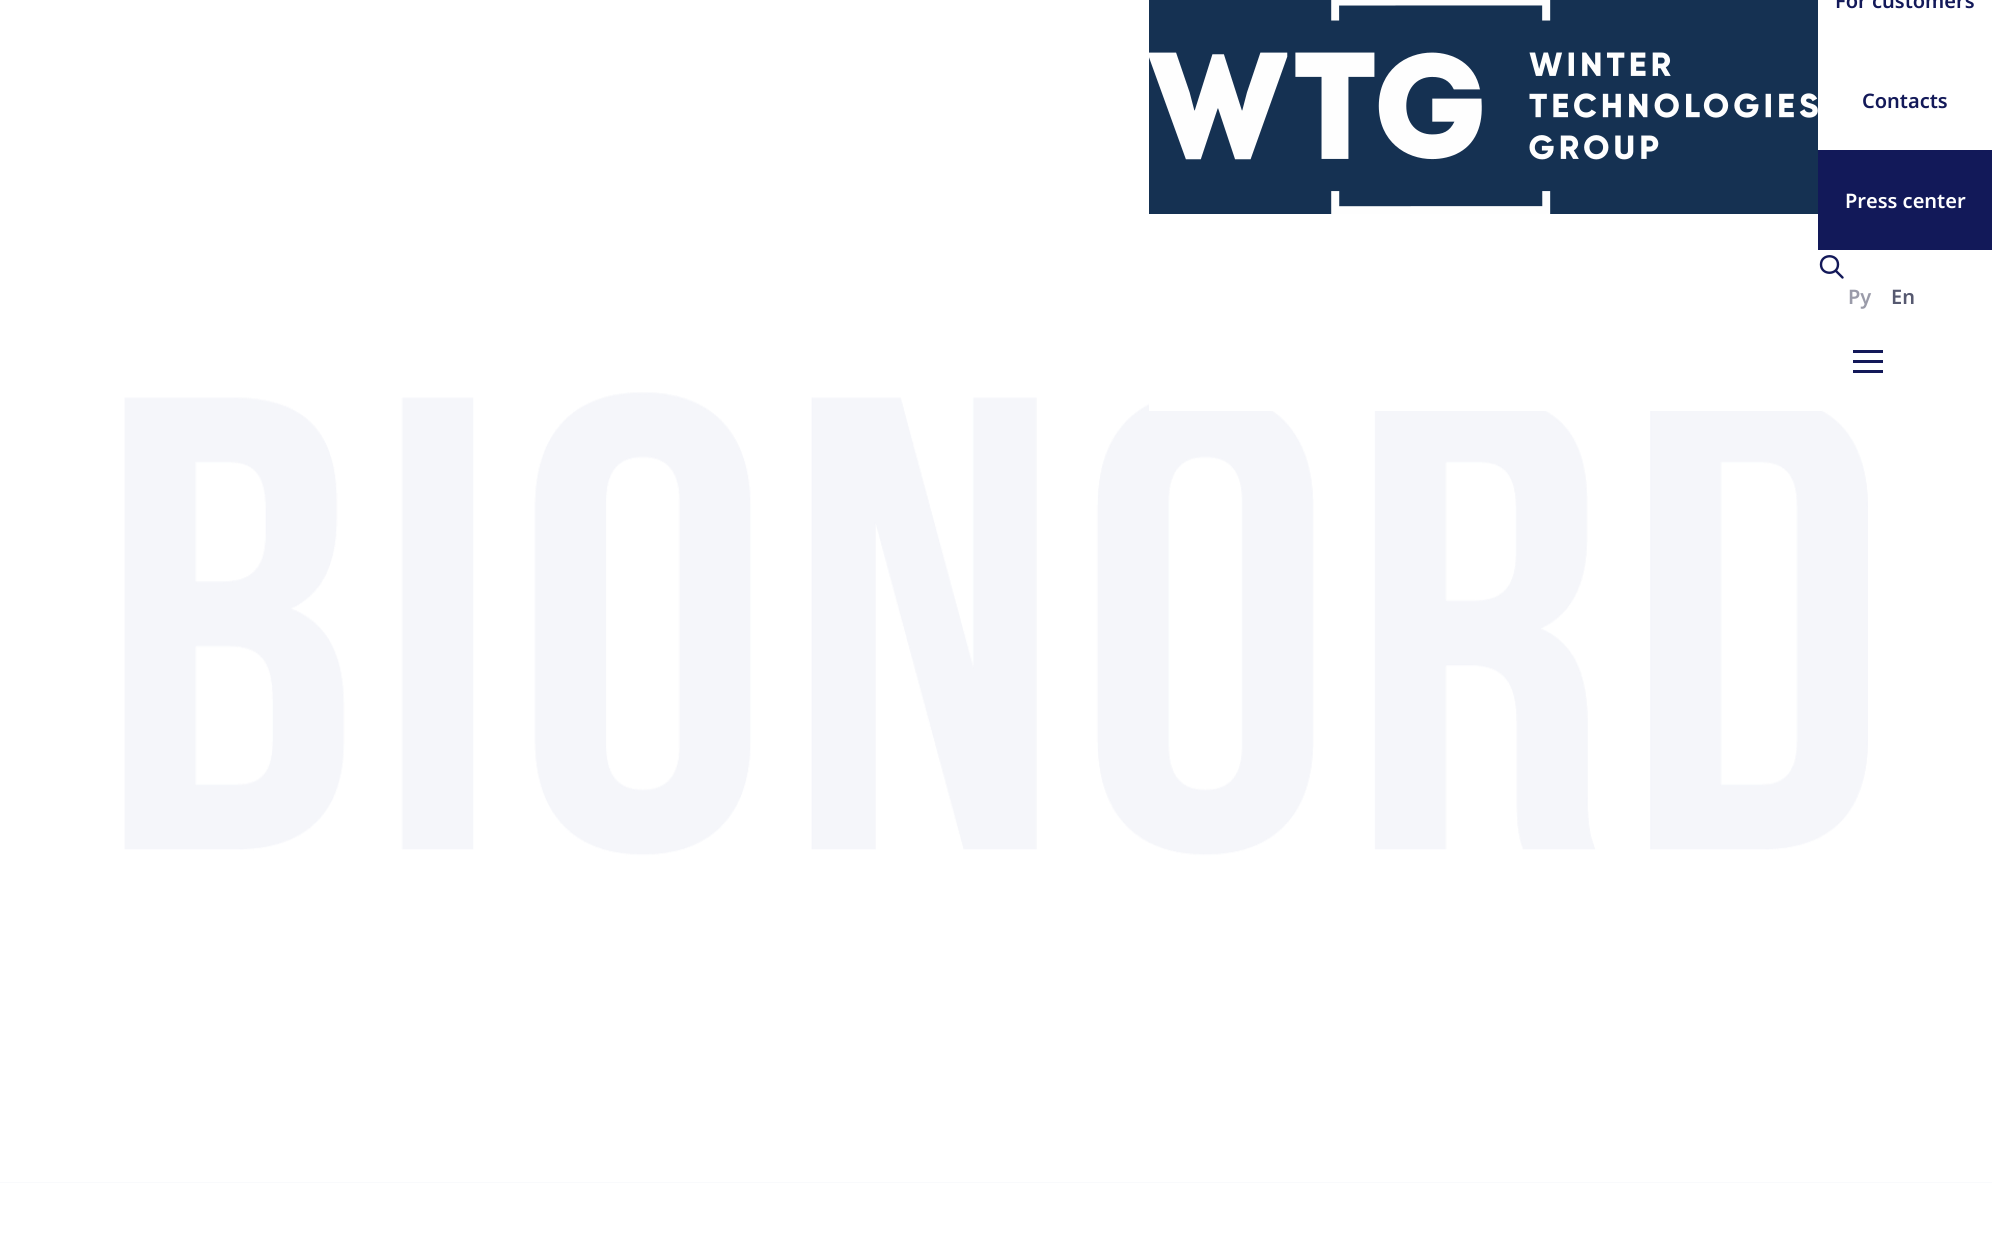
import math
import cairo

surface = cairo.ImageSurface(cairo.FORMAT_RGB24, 1992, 1243)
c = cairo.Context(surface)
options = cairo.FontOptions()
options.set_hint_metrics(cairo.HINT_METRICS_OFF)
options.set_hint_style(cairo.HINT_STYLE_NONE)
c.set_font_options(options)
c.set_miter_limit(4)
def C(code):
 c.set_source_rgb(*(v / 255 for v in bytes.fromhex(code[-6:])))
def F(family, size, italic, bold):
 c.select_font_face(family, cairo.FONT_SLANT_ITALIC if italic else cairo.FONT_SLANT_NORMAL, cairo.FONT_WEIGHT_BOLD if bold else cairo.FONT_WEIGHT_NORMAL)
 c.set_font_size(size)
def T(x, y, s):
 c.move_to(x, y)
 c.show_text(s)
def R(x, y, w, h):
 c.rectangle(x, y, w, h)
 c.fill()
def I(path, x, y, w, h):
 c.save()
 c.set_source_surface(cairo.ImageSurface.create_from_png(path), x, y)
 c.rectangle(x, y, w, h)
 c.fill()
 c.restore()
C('ffffff')
c.paint()
C('f5f6fa')
R(0,392,1992,791)
I('2.png',0,61,1992,1122)
C('ffffff')
R(1149,392,673,19)
C('153152')
R(1149,0,669,214)
I('1.png',1149,0,669,214)
F('Noto Sans SemiBold',20,0,0)
C('131959')
T(1835,8,'For customers')
T(1862,108,'Contacts')
C('121959')
R(1818,150,174,100)
C('ffffff')
T(1845,208,'Press center')
c.new_path()
c.move_to(1835.5,270.5)
c.line_to(1842.5,277.5)
c.move_to(1838,264.5)
c.curve_to(1838,275.5,1821,275.5,1821,264.5)
c.curve_to(1821,253.5,1838,253.5,1838,264.5)
c.close_path()
C('131959')
c.set_line_width(2.4)
c.set_line_cap(cairo.LINE_CAP_ROUND)
c.set_line_join(cairo.LINE_JOIN_ROUND)
c.stroke()
C('9a9ba9')
T(1848,304,'Ру')
C('565970')
T(1891,304,'En')
C('131959')
R(1853,350,30,3)
R(1853,360,30,3)
R(1853,370,30,3)
surface.write_to_png('o.png')
